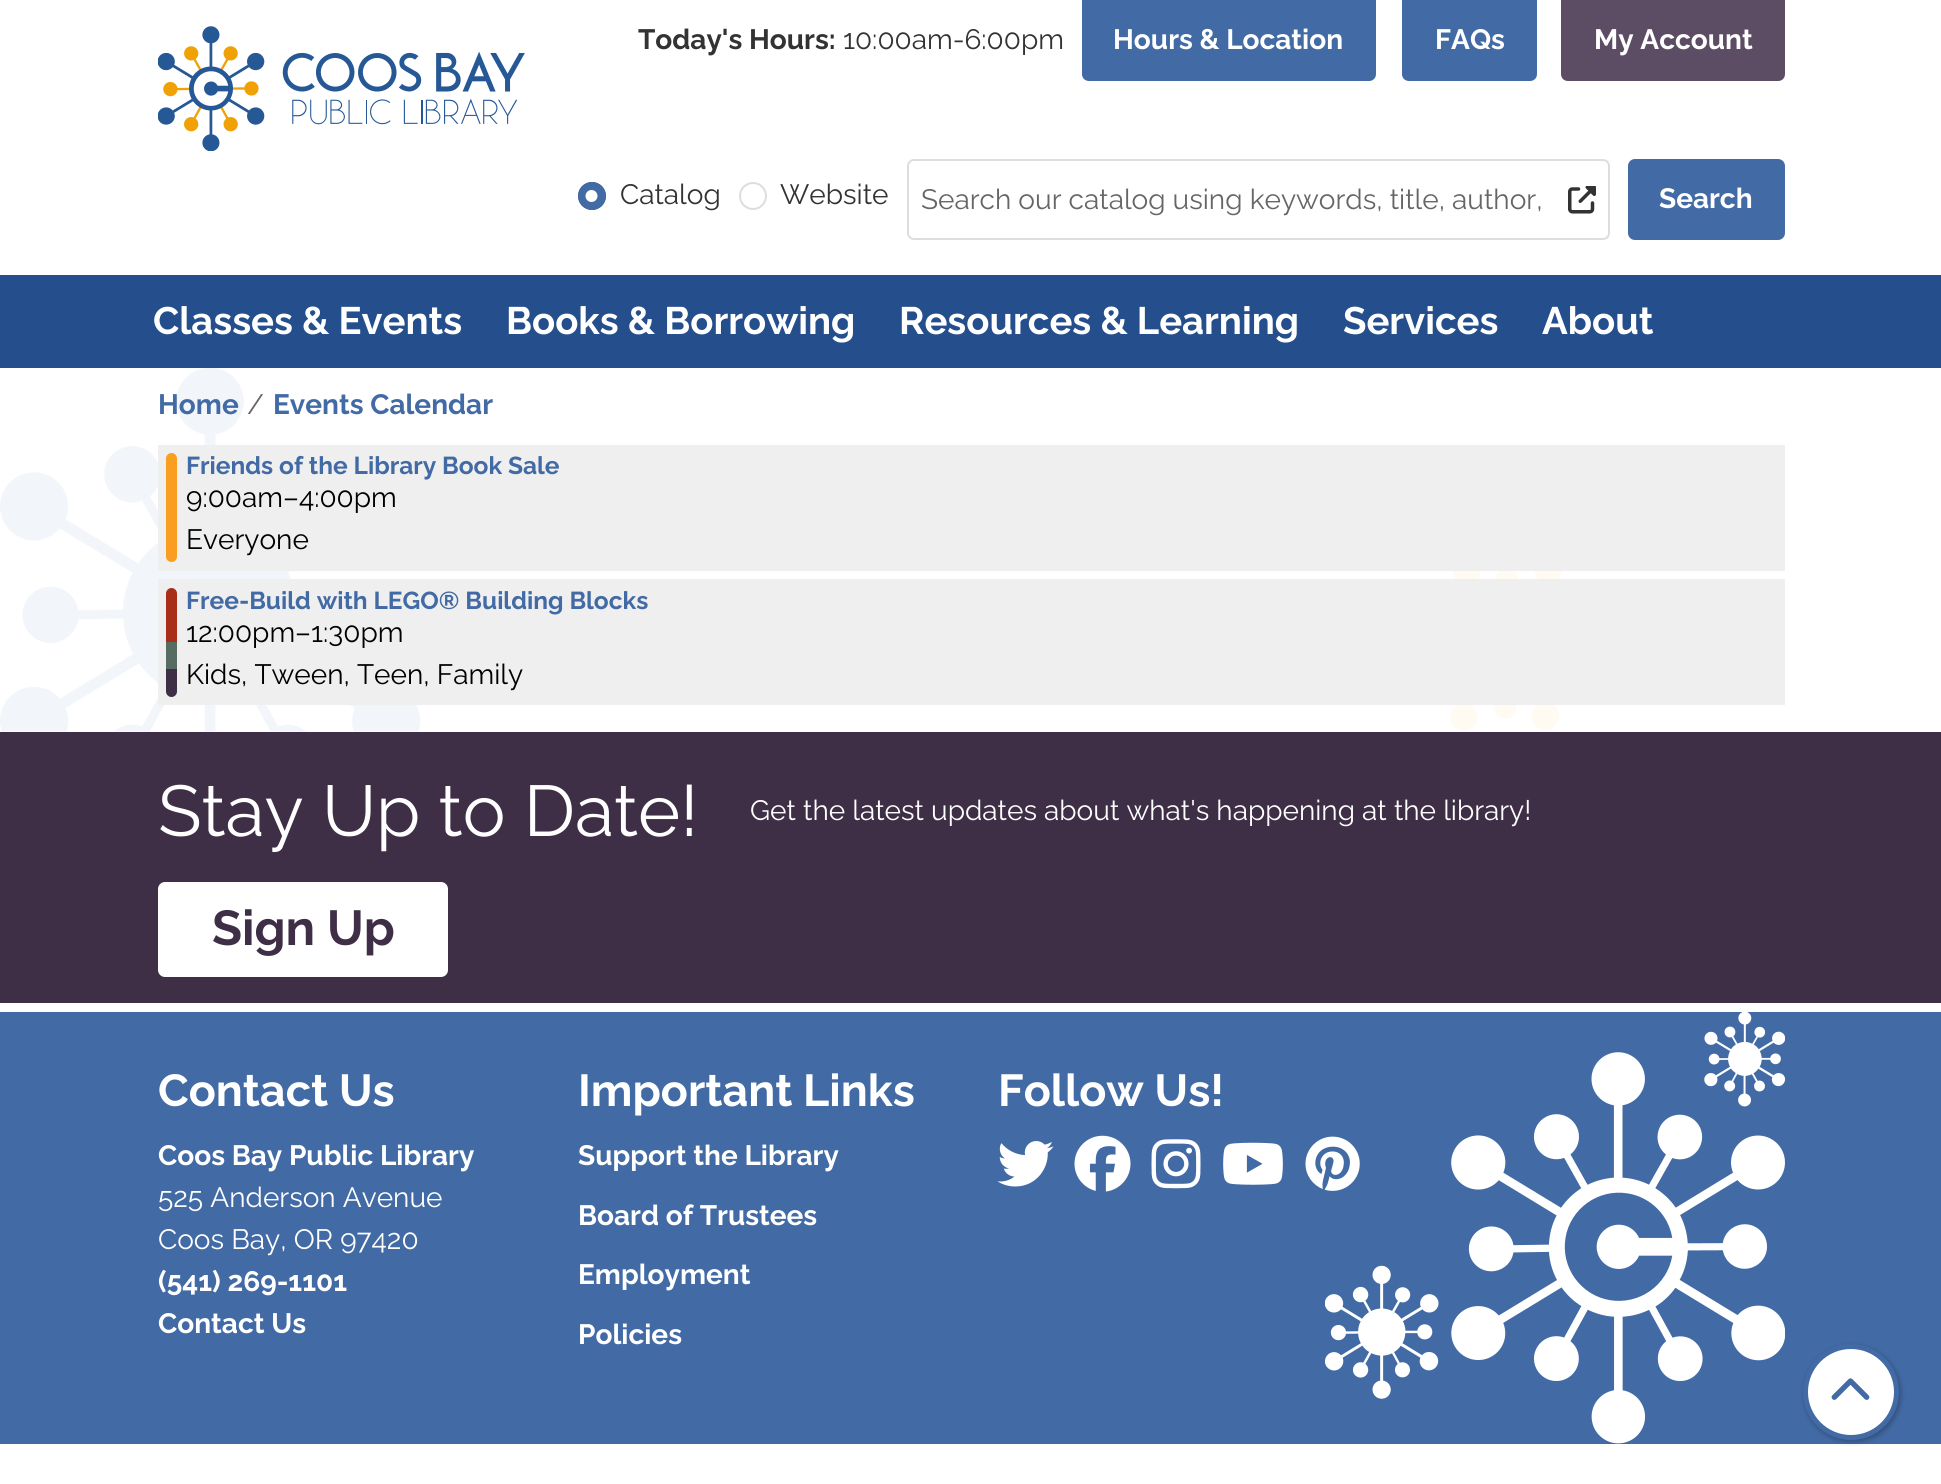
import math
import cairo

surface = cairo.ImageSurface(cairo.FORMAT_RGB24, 1941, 1484)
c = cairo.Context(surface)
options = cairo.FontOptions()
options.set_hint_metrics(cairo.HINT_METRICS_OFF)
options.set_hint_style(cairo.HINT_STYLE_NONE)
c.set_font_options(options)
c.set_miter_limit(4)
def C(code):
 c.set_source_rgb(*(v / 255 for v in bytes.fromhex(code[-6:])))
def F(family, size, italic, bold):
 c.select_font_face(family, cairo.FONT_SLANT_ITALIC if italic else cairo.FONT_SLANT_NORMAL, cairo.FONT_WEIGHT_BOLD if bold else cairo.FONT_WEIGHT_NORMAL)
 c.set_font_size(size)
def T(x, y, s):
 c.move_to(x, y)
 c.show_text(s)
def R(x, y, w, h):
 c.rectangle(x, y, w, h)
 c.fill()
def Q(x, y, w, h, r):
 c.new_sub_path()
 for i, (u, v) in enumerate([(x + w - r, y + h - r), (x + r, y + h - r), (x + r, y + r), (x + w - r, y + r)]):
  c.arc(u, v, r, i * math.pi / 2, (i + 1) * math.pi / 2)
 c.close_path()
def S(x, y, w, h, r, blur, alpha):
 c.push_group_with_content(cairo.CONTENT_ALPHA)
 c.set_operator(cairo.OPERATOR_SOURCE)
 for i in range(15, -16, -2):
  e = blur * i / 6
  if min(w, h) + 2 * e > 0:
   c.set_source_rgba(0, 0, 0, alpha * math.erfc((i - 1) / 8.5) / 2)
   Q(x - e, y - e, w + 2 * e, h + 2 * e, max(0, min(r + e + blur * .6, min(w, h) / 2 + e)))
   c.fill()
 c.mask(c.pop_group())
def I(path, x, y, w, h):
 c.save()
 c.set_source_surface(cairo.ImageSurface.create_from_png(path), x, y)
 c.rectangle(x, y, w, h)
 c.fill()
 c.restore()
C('ffffff')
c.paint()
I('1.png',158,26,367,125)
F('Raleway',28,0,1)
C('333333')
T(638,49,'Today\'s Hours:')
F('Raleway',28,0,0)
T(843,49,'10:00am-6:00pm')
C('426aa5')
c.new_path()
c.move_to(1083,1)
c.line_to(1375,1)
c.line_to(1375,74)
c.curve_to(1375,77.5,1372.5,80,1369,80)
c.line_to(1089,80)
c.curve_to(1085.5,80,1083,77.5,1083,74)
c.close_path()
c.fill_preserve()
c.stroke()
F('Raleway',28,0,1)
C('ffffff')
T(1113,49,'Hours & Location')
C('426aa5')
c.new_path()
c.move_to(1403,1)
c.line_to(1536,1)
c.line_to(1536,74)
c.curve_to(1536,77.5,1533.5,80,1530,80)
c.line_to(1409,80)
c.curve_to(1405.5,80,1403,77.5,1403,74)
c.close_path()
c.fill_preserve()
c.stroke()
C('ffffff')
T(1435,49,'FAQs')
C('5c4d64')
c.new_path()
c.move_to(1562,1)
c.line_to(1784,1)
c.line_to(1784,74)
c.curve_to(1784,77.5,1781.5,80,1778,80)
c.line_to(1568,80)
c.curve_to(1564.5,80,1562,77.5,1562,74)
c.close_path()
c.fill_preserve()
c.stroke()
C('ffffff')
T(1594,49,'My Account')
C('426aa5')
c.new_path()
c.arc(592,196,14,0,2 * math.pi)
c.fill()
C('ffffff')
c.arc(591.5,196,6,0,2 * math.pi)
c.fill()
c.arc(592,196,13,0,2 * math.pi)
C('426aa5')
c.stroke()
F('Raleway',28,0,0)
C('333333')
T(620,204,'Catalog')
c.new_path()
c.arc(753,196,13,0,2 * math.pi)
C('dddddd')
c.stroke()
C('333333')
T(780,204,'Website')
Q(908,160,701,79,6)
C('dddddd')
c.stroke()
C('666666')
T(921,209,'Search our catalog using keywords, title, author,')
I('2.png',1568,186,28,28)
C('426aa5')
Q(1629,160,155,79,6)
c.fill_preserve()
c.stroke()
F('Raleway',28,0,1)
C('ffffff')
T(1659,208,'Search')
C('244e8c')
R(0,275,1941,93)
F('Raleway',38.25,0,1)
C('ffffff')
T(153,334,'Classes & Events')
T(506,334,'Books & Borrowing')
T(899,334,'Resources & Learning')
T(1343,334,'Services')
T(1542,334,'About')
I('3.png',0,368,1562,364)
F('Raleway',28,0,1)
C('426aa5')
T(158,414,'Home')
F('Raleway',28,0,0)
C('666666')
T(247,414,'/')
F('Raleway',28,0,1)
C('426aa5')
T(273,414,'Events Calendar')
C('efefef')
R(158,445,1627,126)
C('f99e20')
Q(166,453,11,109,5.5)
c.fill()
F('Raleway',24.5,0,1)
C('426aa5')
T(186,474,'Friends of the Library Book Sale')
F('Raleway',28,0,0)
C('000000')
T(186,507,'9:00am–4:00pm')
T(186,549,'Everyone')
C('efefef')
R(158,579,1627,126)
C('a82e1a')
c.new_path()
c.move_to(171.5,588)
c.curve_to(174.5,588,177,590.5,177,593.5)
c.line_to(177,614)
c.line_to(166,614)
c.line_to(166,593.5)
c.curve_to(166,590.5,168.5,588,171.5,588)
c.close_path()
c.fill()
R(166,614,11,28)
C('566d61')
R(166,642,11,27)
C('3e2f46')
c.new_path()
c.move_to(166,669)
c.line_to(177,669)
c.line_to(177,691.5)
c.curve_to(177,694.5,174.5,697,171.5,697)
c.curve_to(168.5,697,166,694.5,166,691.5)
c.close_path()
c.fill()
F('Raleway',24.5,0,1)
C('426aa5')
T(186,609,'Free-Build with LEGO® Building Blocks')
F('Raleway',28,0,0)
C('000000')
T(186,642,'12:00pm–1:30pm')
T(186,684,'Kids, Tween, Teen, Family')
C('3e2f46')
R(0,732,1941,271)
F('Raleway',71.75,0,0)
C('ffffff')
T(158,836,'Stay Up to Date!')
F('Raleway',28,0,0)
T(750,820,'Get the latest updates about what\'s happening at the library!')
Q(159,883,288,93,6)
c.fill_preserve()
c.stroke()
F('Raleway',49,0,1)
C('3e2f46')
T(212,945,'Sign Up')
C('426aa5')
R(0,1012,1941,432)
I('4.png',1325,1012,460,432)
F('Raleway',44.75,0,1)
C('ffffff')
T(158,1106,'Contact Us')
F('Raleway',28,0,1)
T(158,1165,'Coos Bay Public Library')
F('Raleway',28,0,0)
T(158,1207,'525 Anderson Avenue')
T(158,1249,'Coos Bay, OR 97420')
F('Raleway',28,0,1)
T(158,1291,'(541) 269-1101')
T(158,1333,'Contact Us')
F('Raleway',44.75,0,1)
T(578,1106,'Important Links')
F('Raleway',28,0,1)
T(578,1165,'Support the Library')
T(578,1225,'Board of Trustees')
T(578,1284,'Employment')
T(578,1344,'Policies')
F('Raleway',44.75,0,1)
T(998,1106,'Follow Us!')
I('5.png',997,1141,57,46)
I('6.png',1074,1135,57,57)
I('7.png',1151,1139,50,50)
I('8.png',1223,1142,60,43)
I('9.png',1305,1136,55,55)
C('000000')
S(1804,1346,97,96,48,2.5,.25)
C('ffffff')
c.arc(1851,1392,45.5,0,2 * math.pi)
c.fill_preserve()
C('426aa5')
c.set_line_width(5)
c.stroke()
I('10.png',1831,1378,39,22)
surface.write_to_png('o.png')
